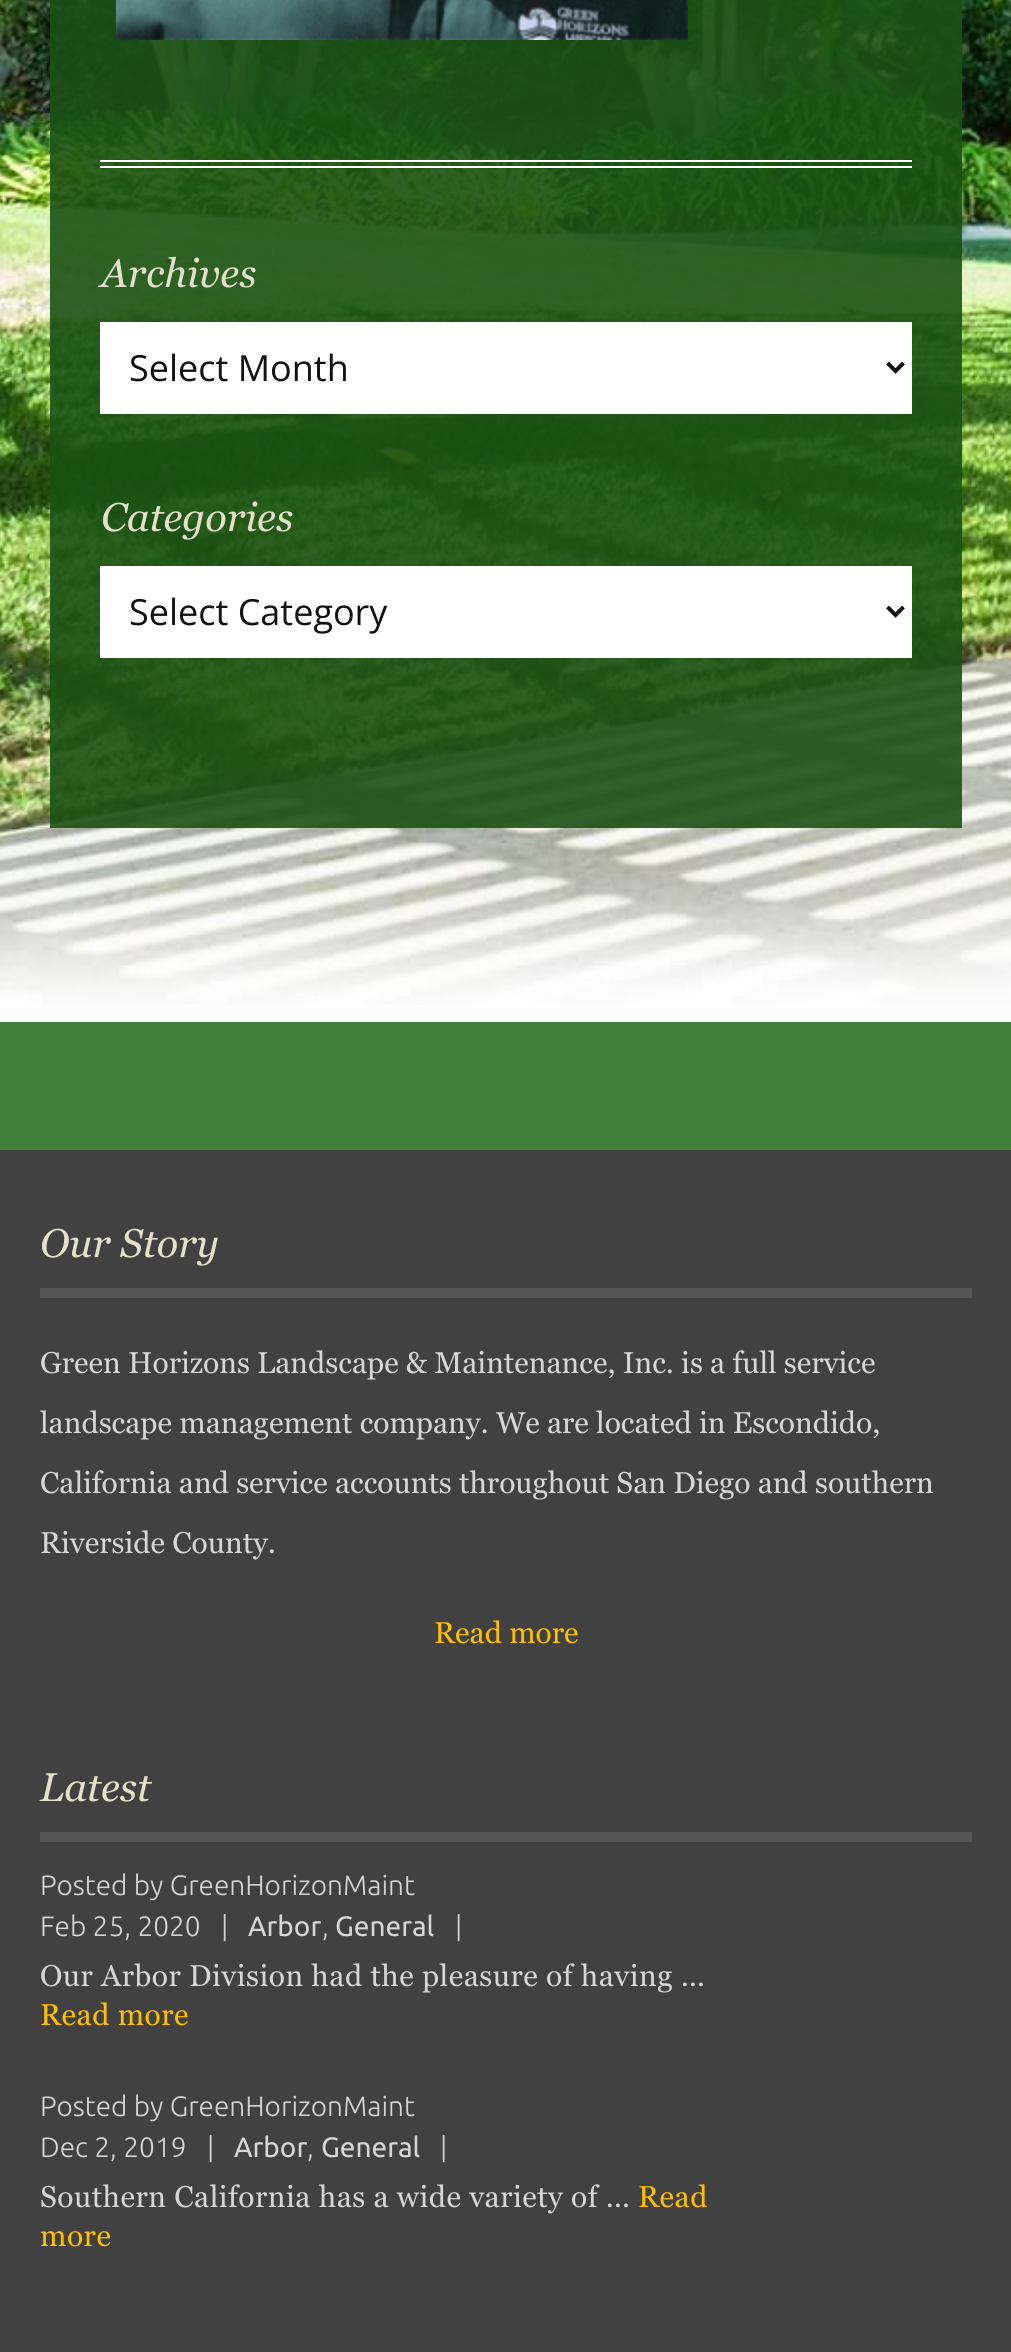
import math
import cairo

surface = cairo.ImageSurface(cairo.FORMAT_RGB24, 1011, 2352)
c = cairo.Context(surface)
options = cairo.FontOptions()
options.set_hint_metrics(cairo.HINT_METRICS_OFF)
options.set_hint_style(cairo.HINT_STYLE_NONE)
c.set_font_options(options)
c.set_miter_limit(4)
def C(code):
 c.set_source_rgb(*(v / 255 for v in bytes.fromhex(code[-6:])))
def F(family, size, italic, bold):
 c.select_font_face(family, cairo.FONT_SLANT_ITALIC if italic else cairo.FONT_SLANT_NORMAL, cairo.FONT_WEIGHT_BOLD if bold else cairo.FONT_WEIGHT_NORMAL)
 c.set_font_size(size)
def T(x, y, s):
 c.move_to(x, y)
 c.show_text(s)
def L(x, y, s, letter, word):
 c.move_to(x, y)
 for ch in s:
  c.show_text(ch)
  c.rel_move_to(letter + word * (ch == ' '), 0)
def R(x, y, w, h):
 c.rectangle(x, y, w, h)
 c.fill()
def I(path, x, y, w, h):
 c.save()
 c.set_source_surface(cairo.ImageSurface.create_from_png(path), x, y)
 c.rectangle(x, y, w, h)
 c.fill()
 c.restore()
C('ffffff')
c.paint()
I('1.png',0,0,1011,1005)
c.set_source_rgba(0.106,0.318,0.082,0.9)
R(50,0,912,828)
I('2.png',116,0,572,40)
C('ffffff')
R(100,160,812,2)
R(100,166,812,2)
F('Georgia',40,1,0)
C('e4e1ca')
T(101,287,'Archives')
C('ffffff')
R(100,322,812,92)
c.new_path()
c.move_to(887.5,363)
c.line_to(895.5,371)
c.line_to(903.5,363)
C('121212')
c.set_line_width(4)
c.stroke()
F('Open Sans',36,0,0)
T(129,381,'Select Month')
F('Georgia',40,1,0)
C('e4e1ca')
T(101,531,'Categories')
C('ffffff')
R(100,566,812,92)
c.new_path()
c.move_to(887.5,607)
c.line_to(895.5,615)
c.line_to(903.5,607)
C('121212')
c.stroke()
F('Open Sans',36,0,0)
T(129,625,'Select Category')
C('414141')
R(0,1150,1011,1202)
C('3f7f38')
R(0,1022,1011,128)
F('Georgia',40,1,0)
C('e4e1ca')
T(40,1257,'Our Story')
C('545454')
R(40,1288,932,10)
F('Georgia',30,0,0)
C('d6d6d6')
T(40,1373,'Green Horizons Landscape & Maintenance, Inc. is a full service')
T(40,1433,'landscape management company. We are located in Escondido,')
T(40,1493,'California and service accounts throughout San Diego and southern')
T(40,1553,'Riverside County.')
C('ffc000')
T(434,1643,'Read more')
F('Georgia',40,1,0)
C('e4e1ca')
T(40,1801,'Latest')
C('545454')
R(40,1832,932,10)
F('Ubuntu Light',28,0,0)
C('d6d6d6')
T(40,1895,'Posted by GreenHorizonMaint')
T(40,1936,'Feb 25, 2020')
T(221,1936,'|')
F('Ubuntu',28,0,0)
T(248,1936,'Arbor')
F('Ubuntu Light',28,0,0)
T(322,1936,',')
F('Ubuntu',28,0,0)
T(335,1936,'General')
F('Ubuntu Light',28,0,0)
T(455,1936,'|')
F('Georgia',30,0,0)
L(40,1986,'Our Arbor Division had the pleasure of having …',.5,0)
C('ffc000')
L(40,2025,'Read more',.5,0)
F('Ubuntu Light',28,0,0)
C('d6d6d6')
T(40,2116,'Posted by GreenHorizonMaint')
T(40,2157,'Dec 2, 2019')
T(207,2157,'|')
F('Ubuntu',28,0,0)
T(234,2157,'Arbor')
F('Ubuntu Light',28,0,0)
T(307,2157,',')
F('Ubuntu',28,0,0)
T(321,2157,'General')
F('Ubuntu Light',28,0,0)
T(440,2157,'|')
F('Georgia',30,0,0)
L(40,2207,'Southern California has a wide variety of …',.5,0)
C('ffc000')
L(638,2207,'Read',.5,0)
L(40,2246,'more',.5,0)
surface.write_to_png('o.png')
